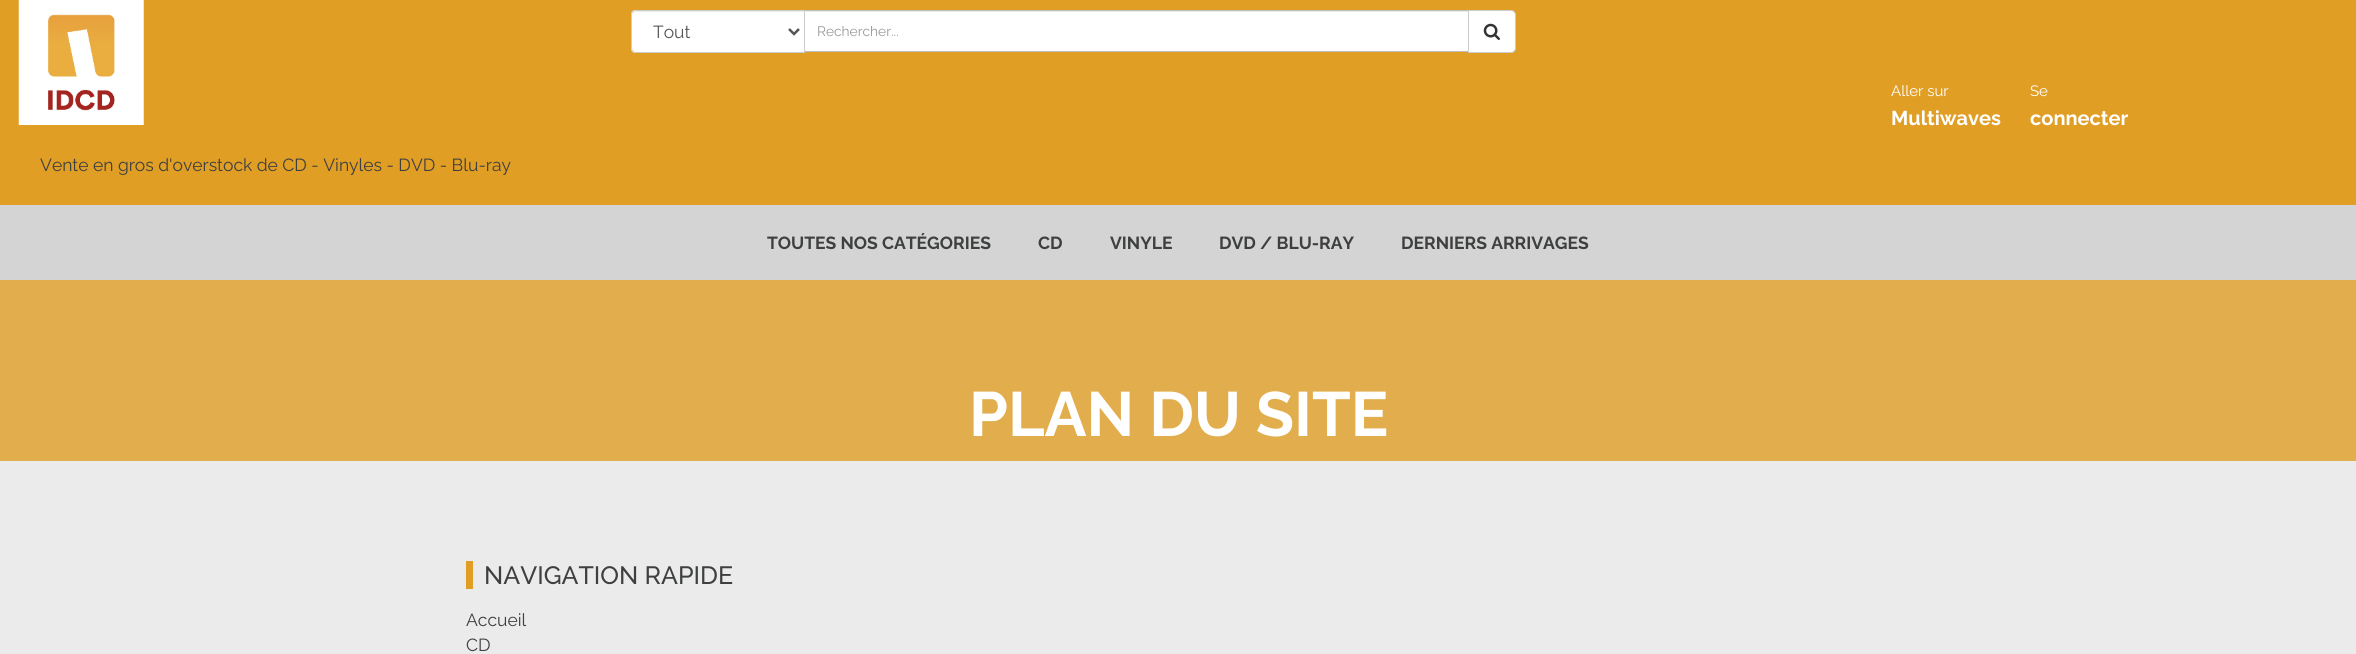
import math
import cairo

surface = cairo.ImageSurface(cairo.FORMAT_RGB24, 2356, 654)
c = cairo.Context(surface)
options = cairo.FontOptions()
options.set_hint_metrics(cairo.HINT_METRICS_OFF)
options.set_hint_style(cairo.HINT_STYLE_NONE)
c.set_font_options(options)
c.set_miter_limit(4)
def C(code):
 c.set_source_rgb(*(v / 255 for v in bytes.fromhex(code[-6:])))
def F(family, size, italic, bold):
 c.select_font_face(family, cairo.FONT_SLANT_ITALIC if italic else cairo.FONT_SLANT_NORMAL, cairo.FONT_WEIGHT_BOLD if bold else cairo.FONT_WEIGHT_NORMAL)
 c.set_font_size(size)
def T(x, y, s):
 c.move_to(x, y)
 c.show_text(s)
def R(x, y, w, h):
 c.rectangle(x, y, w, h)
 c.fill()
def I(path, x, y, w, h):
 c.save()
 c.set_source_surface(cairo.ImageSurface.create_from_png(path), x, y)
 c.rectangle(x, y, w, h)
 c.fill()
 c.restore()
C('ebebeb')
c.paint()
C('e09e25')
R(0,0,2356,205)
C('ffffff')
c.new_path()
c.move_to(636,10)
c.line_to(805,10)
c.line_to(805,53)
c.line_to(636,53)
c.curve_to(633,53,631,51,631,48)
c.line_to(631,15)
c.curve_to(631,12,633,10,636,10)
c.close_path()
c.fill()
C('ececec')
c.new_path()
c.move_to(636,12)
c.line_to(804,12)
c.line_to(804,11)
c.line_to(637,11)
c.curve_to(636,11,634,12,634,13)
c.close_path()
c.fill()
c.new_path()
c.move_to(636,10.5)
c.line_to(804.5,10.5)
c.line_to(804.5,52.5)
c.line_to(636,52.5)
c.curve_to(633.5,52.5,631.5,50.5,631.5,48)
c.line_to(631.5,15)
c.curve_to(631.5,12.5,633.5,10.5,636,10.5)
c.close_path()
C('cccccc')
c.set_line_width(1)
c.stroke()
c.new_path()
c.move_to(789,29)
c.line_to(794,34)
c.line_to(799,29)
C('555555')
c.set_line_width(2.5)
c.stroke()
F('Raleway',17.5,0,0)
T(653,38,'Tout')
C('ffffff')
R(805,12,663,39)
C('ececec')
R(805,11,663,1)
C('bdbdbd')
R(805,10,664,1)
R(805,51,664,1)
F('Raleway',13.75,0,0)
C('999999')
T(817,36,'Rechercher...')
C('ffffff')
c.new_path()
c.move_to(1468.5,10.5)
c.line_to(1511,10.5)
c.curve_to(1513.5,10.5,1515.5,12.5,1515.5,15)
c.line_to(1515.5,48)
c.curve_to(1515.5,50.5,1513.5,52.5,1511,52.5)
c.line_to(1468.5,52.5)
c.close_path()
c.fill_preserve()
C('cccccc')
c.set_line_width(1)
c.stroke()
I('1.png',1483,23,17,17)
F('Raleway',15,0,0)
C('ffffff')
T(1891,96,'Aller sur')
F('Raleway',20,0,1)
T(1891,125,'Multiwaves')
F('Raleway',15,0,0)
T(2030,96,'Se')
F('Raleway',20,0,1)
T(2030,125,'connecter')
I('2.png',18,0,126,125)
F('Raleway',17.5,0,0)
C('3e3f3f')
T(40,171,'Vente en gros d\'overstock de CD - Vinyles - DVD - Blu-ray')
C('d4d4d4')
R(0,205,2356,75)
F('Raleway',17.5,0,1)
C('3e3f3f')
T(767,249,'TOUTES NOS CATÉGORIES')
T(1038,249,'CD')
T(1110,249,'VINYLE')
T(1219,249,'DVD / BLU-RAY')
T(1401,249,'DERNIERS ARRIVAGES')
C('e2ad4d')
R(0,280,2356,181)
F('Raleway',62.5,0,1)
C('ffffff')
T(969,436,'PLAN DU SITE')
C('e09e25')
R(466,561,7,28)
F('Raleway Medium',25,0,0)
C('3e3f3f')
T(484,584,'NAVIGATION RAPIDE')
F('Raleway',17.5,0,0)
T(466,626,'Accueil')
T(466,651,'CD')
surface.write_to_png('o.png')
